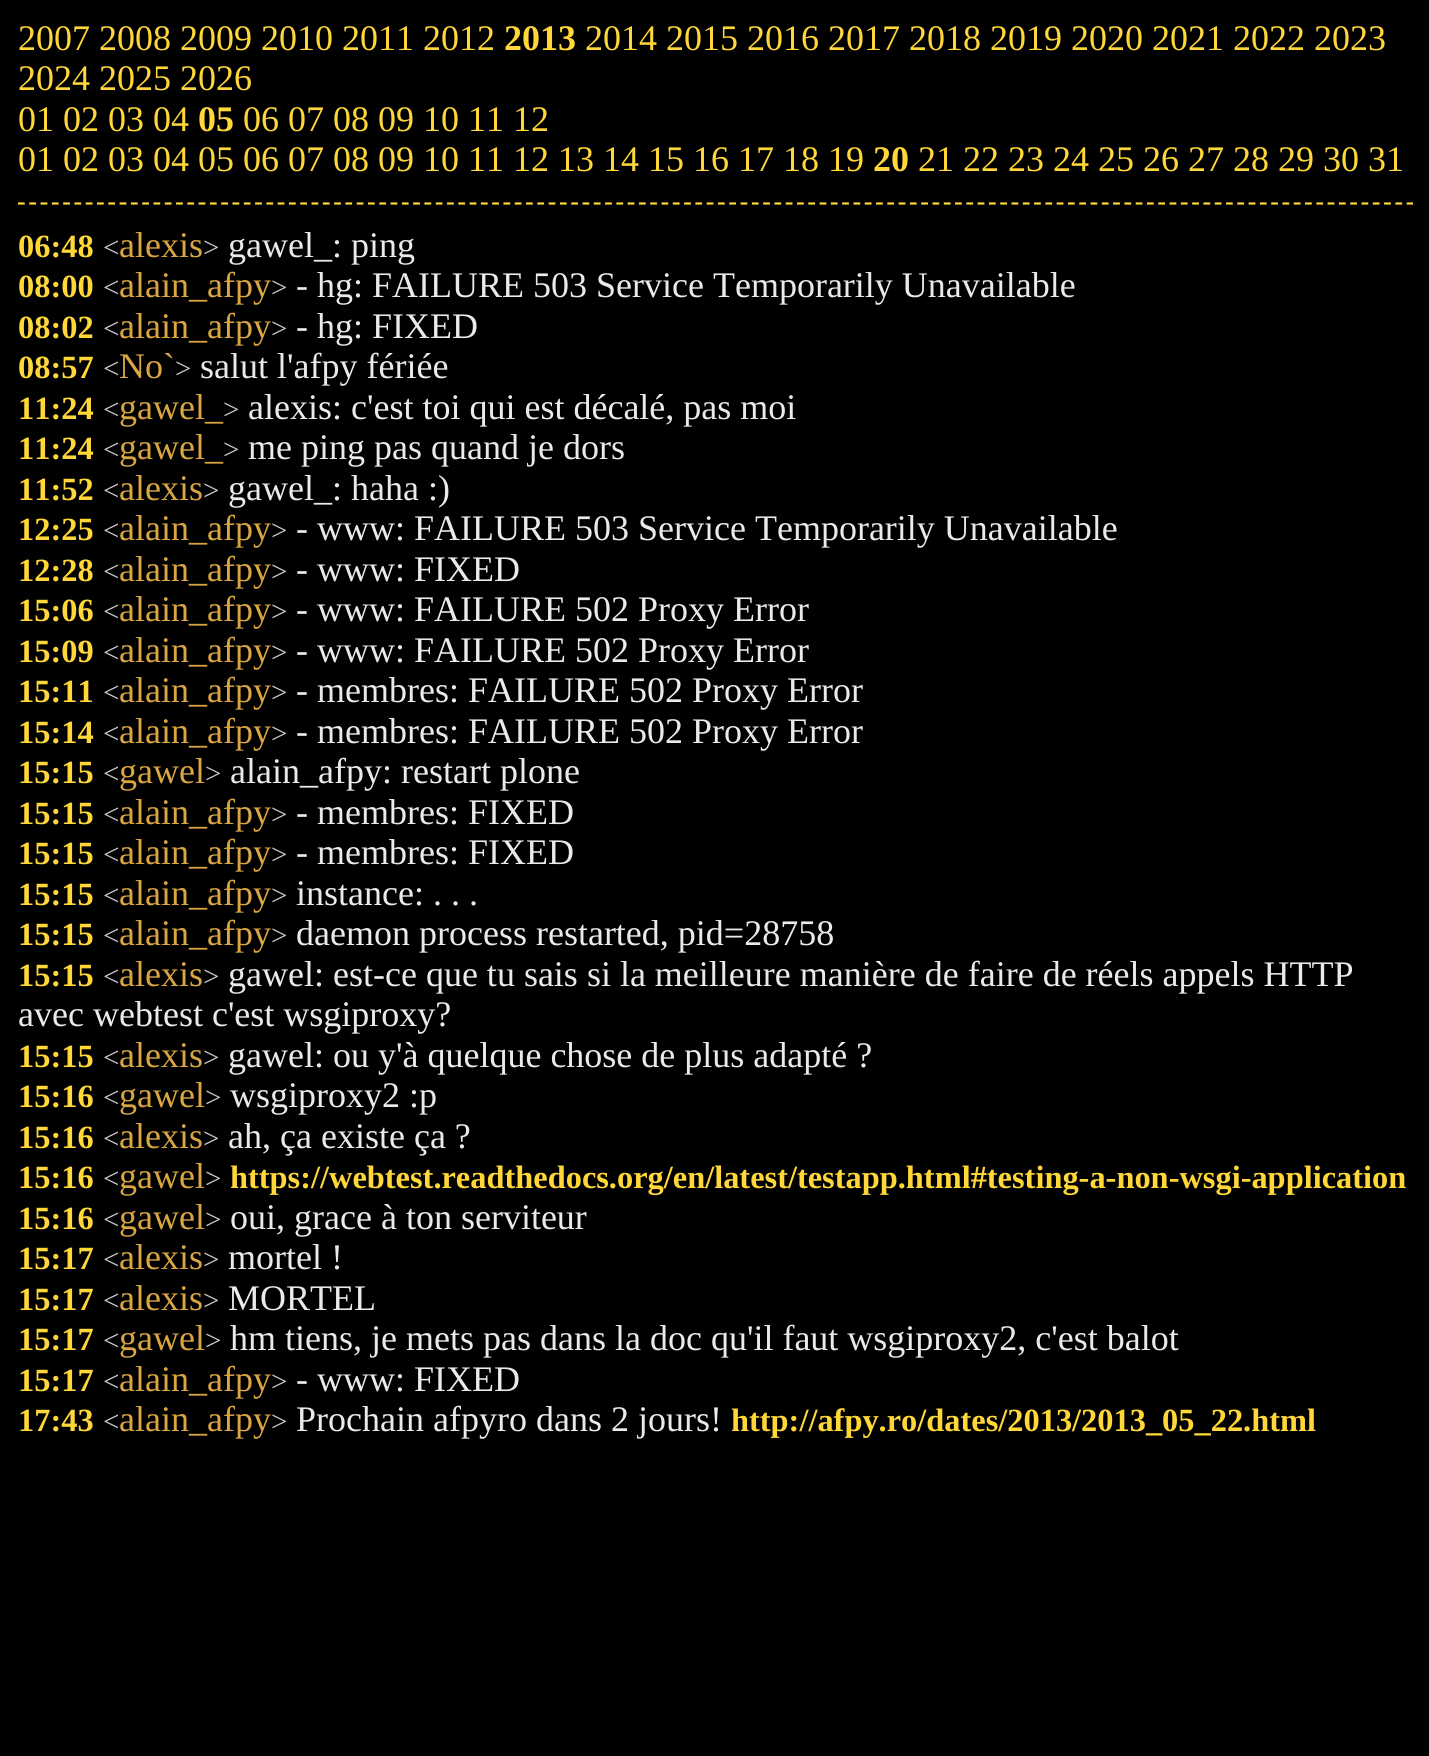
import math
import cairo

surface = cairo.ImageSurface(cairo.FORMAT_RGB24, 1429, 1756)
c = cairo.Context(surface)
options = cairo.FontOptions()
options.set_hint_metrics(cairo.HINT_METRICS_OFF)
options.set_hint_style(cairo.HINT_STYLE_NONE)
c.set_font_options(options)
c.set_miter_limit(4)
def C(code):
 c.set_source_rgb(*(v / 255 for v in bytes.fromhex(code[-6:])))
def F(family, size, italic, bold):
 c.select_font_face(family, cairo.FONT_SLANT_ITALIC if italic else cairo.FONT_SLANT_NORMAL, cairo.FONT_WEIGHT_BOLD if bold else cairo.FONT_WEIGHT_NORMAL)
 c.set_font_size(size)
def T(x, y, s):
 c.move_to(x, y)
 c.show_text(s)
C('000000')
c.paint()
c.new_path()
c.move_to(18,203.5)
c.line_to(1413,203.5)
C('ffd738')
c.set_line_width(2.2)
c.set_dash([6.75,4.54])
c.stroke()
F('Liberation Serif',36,0,0)
T(18,50,'2007 2008 2009 2010 2011 2012')
F('Liberation Serif',36,0,1)
T(504,50,'2013')
F('Liberation Serif',36,0,0)
T(585,50,'2014 2015 2016 2017 2018 2019 2020 2021 2022 2023')
T(18,90,'2024 2025 2026')
T(18,131,'01 02 03 04')
F('Liberation Serif',36,0,1)
T(198,131,'05')
F('Liberation Serif',36,0,0)
T(243,131,'06 07 08 09 10 11 12')
T(18,171,'01 02 03 04 05 06 07 08 09 10 11 12 13 14 15 16 17 18 19')
F('Liberation Serif',36,0,1)
T(873,171,'20')
F('Liberation Serif',36,0,0)
T(918,171,'21 22 23 24 25 26 27 28 29 30 31')
F('Liberation Serif',32.4,0,1)
T(18,257,'06:48')
F('Liberation Serif',29,0,0)
C('cccccc')
T(103,257,'<')
F('Liberation Serif',36,0,0)
C('daa642')
T(119,257,'alexis')
F('Liberation Serif',29,0,0)
C('cccccc')
T(203,257,'>')
F('Liberation Serif',36,0,0)
C('eaeaea')
T(228,257,'gawel_: ping')
F('Liberation Serif',32.4,0,1)
C('ffd738')
T(18,297,'08:00')
F('Liberation Serif',29,0,0)
C('cccccc')
T(103,297,'<')
F('Liberation Serif',36,0,0)
C('daa642')
T(119,297,'alain_afpy')
F('Liberation Serif',29,0,0)
C('cccccc')
T(271,297,'>')
F('Liberation Serif',36,0,0)
C('eaeaea')
T(296,297,'- hg: FAILURE 503 Service Temporarily Unavailable')
F('Liberation Serif',32.4,0,1)
C('ffd738')
T(18,338,'08:02')
F('Liberation Serif',29,0,0)
C('cccccc')
T(103,338,'<')
F('Liberation Serif',36,0,0)
C('daa642')
T(119,338,'alain_afpy')
F('Liberation Serif',29,0,0)
C('cccccc')
T(271,338,'>')
F('Liberation Serif',36,0,0)
C('eaeaea')
T(296,338,'- hg: FIXED')
F('Liberation Serif',32.4,0,1)
C('ffd738')
T(18,378,'08:57')
F('Liberation Serif',29,0,0)
C('cccccc')
T(103,378,'<')
F('Liberation Serif',36,0,0)
C('daa642')
T(119,378,'No`')
F('Liberation Serif',29,0,0)
C('cccccc')
T(175,378,'>')
F('Liberation Serif',36,0,0)
C('eaeaea')
T(200,378,'salut l\'afpy fériée')
F('Liberation Serif',32.4,0,1)
C('ffd738')
T(18,419,'11:24')
F('Liberation Serif',29,0,0)
C('cccccc')
T(103,419,'<')
F('Liberation Serif',36,0,0)
C('daa642')
T(119,419,'gawel_')
F('Liberation Serif',29,0,0)
C('cccccc')
T(223,419,'>')
F('Liberation Serif',36,0,0)
C('eaeaea')
T(248,419,'alexis: c\'est toi qui est décalé, pas moi')
F('Liberation Serif',32.4,0,1)
C('ffd738')
T(18,459,'11:24')
F('Liberation Serif',29,0,0)
C('cccccc')
T(103,459,'<')
F('Liberation Serif',36,0,0)
C('daa642')
T(119,459,'gawel_')
F('Liberation Serif',29,0,0)
C('cccccc')
T(223,459,'>')
F('Liberation Serif',36,0,0)
C('eaeaea')
T(248,459,'me ping pas quand je dors')
F('Liberation Serif',32.4,0,1)
C('ffd738')
T(18,500,'11:52')
F('Liberation Serif',29,0,0)
C('cccccc')
T(103,500,'<')
F('Liberation Serif',36,0,0)
C('daa642')
T(119,500,'alexis')
F('Liberation Serif',29,0,0)
C('cccccc')
T(203,500,'>')
F('Liberation Serif',36,0,0)
C('eaeaea')
T(228,500,'gawel_: haha :)')
F('Liberation Serif',32.4,0,1)
C('ffd738')
T(18,540,'12:25')
F('Liberation Serif',29,0,0)
C('cccccc')
T(103,540,'<')
F('Liberation Serif',36,0,0)
C('daa642')
T(119,540,'alain_afpy')
F('Liberation Serif',29,0,0)
C('cccccc')
T(271,540,'>')
F('Liberation Serif',36,0,0)
C('eaeaea')
T(296,540,'- www: FAILURE 503 Service Temporarily Unavailable')
F('Liberation Serif',32.4,0,1)
C('ffd738')
T(18,581,'12:28')
F('Liberation Serif',29,0,0)
C('cccccc')
T(103,581,'<')
F('Liberation Serif',36,0,0)
C('daa642')
T(119,581,'alain_afpy')
F('Liberation Serif',29,0,0)
C('cccccc')
T(271,581,'>')
F('Liberation Serif',36,0,0)
C('eaeaea')
T(296,581,'- www: FIXED')
F('Liberation Serif',32.4,0,1)
C('ffd738')
T(18,621,'15:06')
F('Liberation Serif',29,0,0)
C('cccccc')
T(103,621,'<')
F('Liberation Serif',36,0,0)
C('daa642')
T(119,621,'alain_afpy')
F('Liberation Serif',29,0,0)
C('cccccc')
T(271,621,'>')
F('Liberation Serif',36,0,0)
C('eaeaea')
T(296,621,'- www: FAILURE 502 Proxy Error')
F('Liberation Serif',32.4,0,1)
C('ffd738')
T(18,662,'15:09')
F('Liberation Serif',29,0,0)
C('cccccc')
T(103,662,'<')
F('Liberation Serif',36,0,0)
C('daa642')
T(119,662,'alain_afpy')
F('Liberation Serif',29,0,0)
C('cccccc')
T(271,662,'>')
F('Liberation Serif',36,0,0)
C('eaeaea')
T(296,662,'- www: FAILURE 502 Proxy Error')
F('Liberation Serif',32.4,0,1)
C('ffd738')
T(18,702,'15:11')
F('Liberation Serif',29,0,0)
C('cccccc')
T(103,702,'<')
F('Liberation Serif',36,0,0)
C('daa642')
T(119,702,'alain_afpy')
F('Liberation Serif',29,0,0)
C('cccccc')
T(271,702,'>')
F('Liberation Serif',36,0,0)
C('eaeaea')
T(296,702,'- membres: FAILURE 502 Proxy Error')
F('Liberation Serif',32.4,0,1)
C('ffd738')
T(18,743,'15:14')
F('Liberation Serif',29,0,0)
C('cccccc')
T(103,743,'<')
F('Liberation Serif',36,0,0)
C('daa642')
T(119,743,'alain_afpy')
F('Liberation Serif',29,0,0)
C('cccccc')
T(271,743,'>')
F('Liberation Serif',36,0,0)
C('eaeaea')
T(296,743,'- membres: FAILURE 502 Proxy Error')
F('Liberation Serif',32.4,0,1)
C('ffd738')
T(18,783,'15:15')
F('Liberation Serif',29,0,0)
C('cccccc')
T(103,783,'<')
F('Liberation Serif',36,0,0)
C('daa642')
T(119,783,'gawel')
F('Liberation Serif',29,0,0)
C('cccccc')
T(205,783,'>')
F('Liberation Serif',36,0,0)
C('eaeaea')
T(230,783,'alain_afpy: restart plone')
F('Liberation Serif',32.4,0,1)
C('ffd738')
T(18,824,'15:15')
F('Liberation Serif',29,0,0)
C('cccccc')
T(103,824,'<')
F('Liberation Serif',36,0,0)
C('daa642')
T(119,824,'alain_afpy')
F('Liberation Serif',29,0,0)
C('cccccc')
T(271,824,'>')
F('Liberation Serif',36,0,0)
C('eaeaea')
T(296,824,'- membres: FIXED')
F('Liberation Serif',32.4,0,1)
C('ffd738')
T(18,864,'15:15')
F('Liberation Serif',29,0,0)
C('cccccc')
T(103,864,'<')
F('Liberation Serif',36,0,0)
C('daa642')
T(119,864,'alain_afpy')
F('Liberation Serif',29,0,0)
C('cccccc')
T(271,864,'>')
F('Liberation Serif',36,0,0)
C('eaeaea')
T(296,864,'- membres: FIXED')
F('Liberation Serif',32.4,0,1)
C('ffd738')
T(18,905,'15:15')
F('Liberation Serif',29,0,0)
C('cccccc')
T(103,905,'<')
F('Liberation Serif',36,0,0)
C('daa642')
T(119,905,'alain_afpy')
F('Liberation Serif',29,0,0)
C('cccccc')
T(271,905,'>')
F('Liberation Serif',36,0,0)
C('eaeaea')
T(296,905,'instance: . . .')
F('Liberation Serif',32.4,0,1)
C('ffd738')
T(18,945,'15:15')
F('Liberation Serif',29,0,0)
C('cccccc')
T(103,945,'<')
F('Liberation Serif',36,0,0)
C('daa642')
T(119,945,'alain_afpy')
F('Liberation Serif',29,0,0)
C('cccccc')
T(271,945,'>')
F('Liberation Serif',36,0,0)
C('eaeaea')
T(296,945,'daemon process restarted, pid=28758')
F('Liberation Serif',32.4,0,1)
C('ffd738')
T(18,986,'15:15')
F('Liberation Serif',29,0,0)
C('cccccc')
T(103,986,'<')
F('Liberation Serif',36,0,0)
C('daa642')
T(119,986,'alexis')
F('Liberation Serif',29,0,0)
C('cccccc')
T(203,986,'>')
F('Liberation Serif',36,0,0)
C('eaeaea')
T(228,986,'gawel: est-ce que tu sais si la meilleure manière de faire de réels appels HTTP')
T(18,1026,'avec webtest c\'est wsgiproxy?')
F('Liberation Serif',32.4,0,1)
C('ffd738')
T(18,1067,'15:15')
F('Liberation Serif',29,0,0)
C('cccccc')
T(103,1067,'<')
F('Liberation Serif',36,0,0)
C('daa642')
T(119,1067,'alexis')
F('Liberation Serif',29,0,0)
C('cccccc')
T(203,1067,'>')
F('Liberation Serif',36,0,0)
C('eaeaea')
T(228,1067,'gawel: ou y\'à quelque chose de plus adapté ?')
F('Liberation Serif',32.4,0,1)
C('ffd738')
T(18,1107,'15:16')
F('Liberation Serif',29,0,0)
C('cccccc')
T(103,1107,'<')
F('Liberation Serif',36,0,0)
C('daa642')
T(119,1107,'gawel')
F('Liberation Serif',29,0,0)
C('cccccc')
T(205,1107,'>')
F('Liberation Serif',36,0,0)
C('eaeaea')
T(230,1107,'wsgiproxy2 :p')
F('Liberation Serif',32.4,0,1)
C('ffd738')
T(18,1148,'15:16')
F('Liberation Serif',29,0,0)
C('cccccc')
T(103,1148,'<')
F('Liberation Serif',36,0,0)
C('daa642')
T(119,1148,'alexis')
F('Liberation Serif',29,0,0)
C('cccccc')
T(203,1148,'>')
F('Liberation Serif',36,0,0)
C('eaeaea')
T(228,1148,'ah, ça existe ça ?')
F('Liberation Serif',32.4,0,1)
C('ffd738')
T(18,1188,'15:16')
F('Liberation Serif',29,0,0)
C('cccccc')
T(103,1188,'<')
F('Liberation Serif',36,0,0)
C('daa642')
T(119,1188,'gawel')
F('Liberation Serif',29,0,0)
C('cccccc')
T(205,1188,'>')
F('Liberation Serif',32.4,0,1)
C('ffd738')
T(230,1188,'https://webtest.readthedocs.org/en/latest/testapp.html#testing-a-non-wsgi-application')
T(18,1229,'15:16')
F('Liberation Serif',29,0,0)
C('cccccc')
T(103,1229,'<')
F('Liberation Serif',36,0,0)
C('daa642')
T(119,1229,'gawel')
F('Liberation Serif',29,0,0)
C('cccccc')
T(205,1229,'>')
F('Liberation Serif',36,0,0)
C('eaeaea')
T(230,1229,'oui, grace à ton serviteur')
F('Liberation Serif',32.4,0,1)
C('ffd738')
T(18,1269,'15:17')
F('Liberation Serif',29,0,0)
C('cccccc')
T(103,1269,'<')
F('Liberation Serif',36,0,0)
C('daa642')
T(119,1269,'alexis')
F('Liberation Serif',29,0,0)
C('cccccc')
T(203,1269,'>')
F('Liberation Serif',36,0,0)
C('eaeaea')
T(228,1269,'mortel !')
F('Liberation Serif',32.4,0,1)
C('ffd738')
T(18,1310,'15:17')
F('Liberation Serif',29,0,0)
C('cccccc')
T(103,1310,'<')
F('Liberation Serif',36,0,0)
C('daa642')
T(119,1310,'alexis')
F('Liberation Serif',29,0,0)
C('cccccc')
T(203,1310,'>')
F('Liberation Serif',36,0,0)
C('eaeaea')
T(228,1310,'MORTEL')
F('Liberation Serif',32.4,0,1)
C('ffd738')
T(18,1350,'15:17')
F('Liberation Serif',29,0,0)
C('cccccc')
T(103,1350,'<')
F('Liberation Serif',36,0,0)
C('daa642')
T(119,1350,'gawel')
F('Liberation Serif',29,0,0)
C('cccccc')
T(205,1350,'>')
F('Liberation Serif',36,0,0)
C('eaeaea')
T(230,1350,'hm tiens, je mets pas dans la doc qu\'il faut wsgiproxy2, c\'est balot')
F('Liberation Serif',32.4,0,1)
C('ffd738')
T(18,1391,'15:17')
F('Liberation Serif',29,0,0)
C('cccccc')
T(103,1391,'<')
F('Liberation Serif',36,0,0)
C('daa642')
T(119,1391,'alain_afpy')
F('Liberation Serif',29,0,0)
C('cccccc')
T(271,1391,'>')
F('Liberation Serif',36,0,0)
C('eaeaea')
T(296,1391,'- www: FIXED')
F('Liberation Serif',32.4,0,1)
C('ffd738')
T(18,1431,'17:43')
F('Liberation Serif',29,0,0)
C('cccccc')
T(103,1431,'<')
F('Liberation Serif',36,0,0)
C('daa642')
T(119,1431,'alain_afpy')
F('Liberation Serif',29,0,0)
C('cccccc')
T(271,1431,'>')
F('Liberation Serif',36,0,0)
C('eaeaea')
T(296,1431,'Prochain afpyro dans 2 jours!')
F('Liberation Serif',32.4,0,1)
C('ffd738')
T(731,1431,'http://afpy.ro/dates/2013/2013_05_22.html')
surface.write_to_png('o.png')
